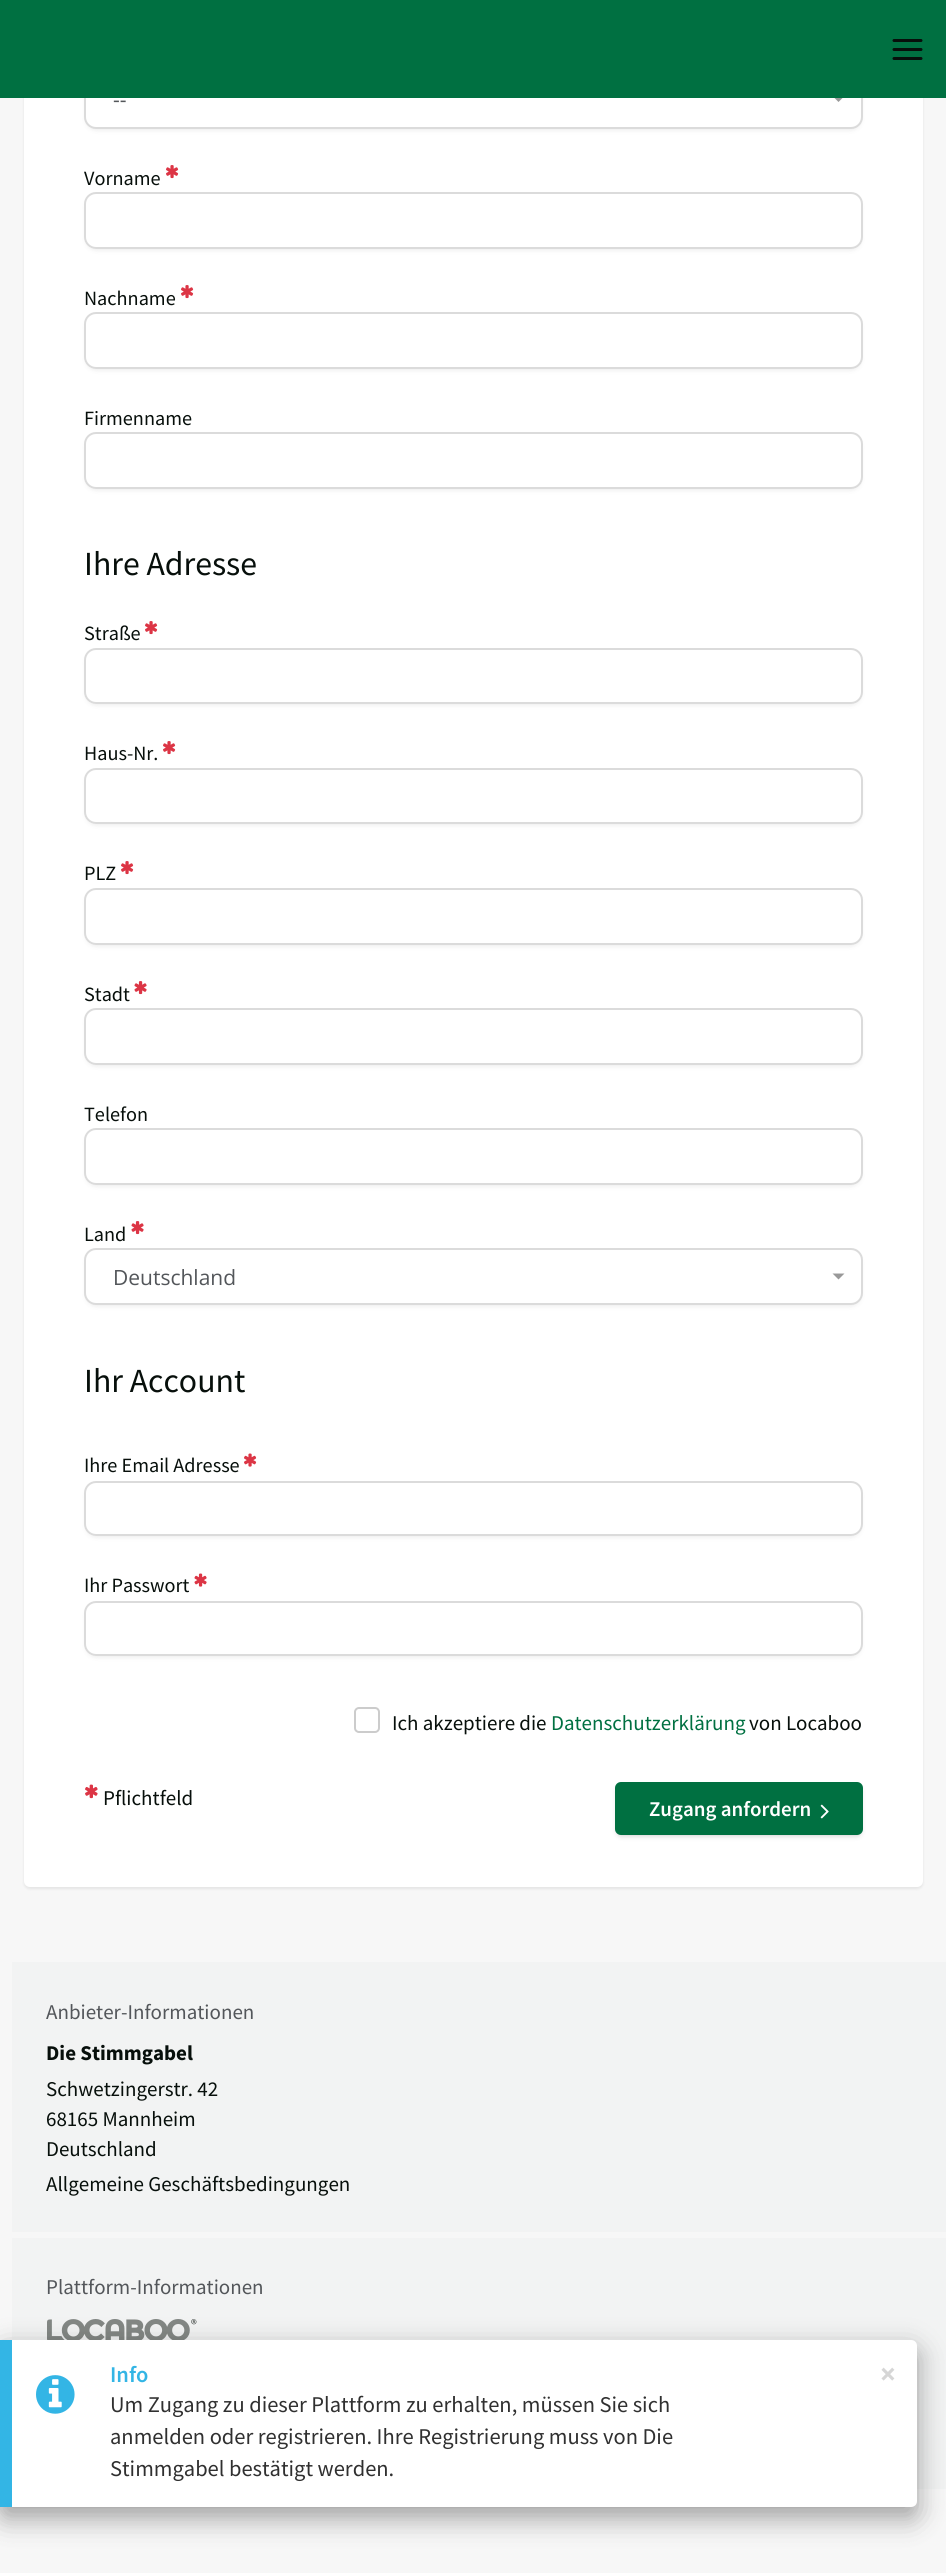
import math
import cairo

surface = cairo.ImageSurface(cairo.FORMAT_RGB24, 946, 2573)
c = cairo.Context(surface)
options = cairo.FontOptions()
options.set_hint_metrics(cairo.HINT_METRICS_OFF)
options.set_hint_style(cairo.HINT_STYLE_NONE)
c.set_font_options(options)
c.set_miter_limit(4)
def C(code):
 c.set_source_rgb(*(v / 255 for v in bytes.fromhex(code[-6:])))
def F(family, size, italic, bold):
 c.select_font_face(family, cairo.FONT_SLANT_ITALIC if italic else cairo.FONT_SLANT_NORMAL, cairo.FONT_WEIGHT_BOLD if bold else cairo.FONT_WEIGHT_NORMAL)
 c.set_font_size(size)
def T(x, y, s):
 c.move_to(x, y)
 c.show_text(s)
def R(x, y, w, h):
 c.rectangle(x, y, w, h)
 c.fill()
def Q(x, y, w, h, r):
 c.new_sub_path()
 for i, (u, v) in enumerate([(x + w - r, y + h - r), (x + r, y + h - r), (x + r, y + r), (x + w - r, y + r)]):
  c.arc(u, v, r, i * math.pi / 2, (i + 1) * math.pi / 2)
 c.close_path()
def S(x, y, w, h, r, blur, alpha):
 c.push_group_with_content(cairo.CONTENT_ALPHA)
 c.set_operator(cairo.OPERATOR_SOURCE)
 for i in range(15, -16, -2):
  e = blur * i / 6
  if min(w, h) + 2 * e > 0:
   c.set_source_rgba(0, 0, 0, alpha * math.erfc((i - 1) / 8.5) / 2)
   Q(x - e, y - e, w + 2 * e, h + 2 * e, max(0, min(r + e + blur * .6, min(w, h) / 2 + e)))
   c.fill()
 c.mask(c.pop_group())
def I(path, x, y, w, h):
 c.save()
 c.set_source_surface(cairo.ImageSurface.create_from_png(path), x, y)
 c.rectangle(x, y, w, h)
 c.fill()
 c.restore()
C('f7f7f7')
c.paint()
C('000000')
S(24,-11,899,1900,6,1.5,.08)
C('ffffff')
Q(24,-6,899,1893,6)
c.fill()
C('000000')
S(87,78,773,51,9,3,.11)
C('ffffff')
Q(85,73,777,55,11)
c.fill_preserve()
C('dbdbdb')
c.stroke()
C('999999')
c.new_path()
c.move_to(832.5,96)
c.line_to(844.5,96)
c.line_to(838.5,102)
c.close_path()
c.fill()
C('007041')
R(0,0,946,98)
c.new_path()
c.move_to(894,49.5)
c.line_to(921,49.5)
c.move_to(894,40.5)
c.line_to(921,40.5)
c.move_to(894,58.5)
c.line_to(921,58.5)
C('070f0b')
c.set_line_width(3)
c.set_line_cap(cairo.LINE_CAP_ROUND)
c.set_line_join(cairo.LINE_JOIN_ROUND)
c.stroke()
F('Open Sans',21,0,0)
C('53565a')
T(113,107,'--')
F('Source Sans Pro',20.25,0,0)
C('070f0b')
T(84,185,'Vorname')
I('1.png',166,165,13,14)
c.save()
c.set_fill_rule(cairo.FILL_RULE_EVEN_ODD)
c.new_path()
c.move_to(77,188)
c.line_to(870,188)
c.line_to(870,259)
c.line_to(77,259)
c.close_path()
c.move_to(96,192)
c.line_to(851,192)
c.curve_to(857.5,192,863,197.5,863,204)
c.line_to(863,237)
c.curve_to(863,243.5,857.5,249,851,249)
c.line_to(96,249)
c.curve_to(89.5,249,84,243.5,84,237)
c.line_to(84,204)
c.curve_to(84,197.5,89.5,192,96,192)
c.close_path()
c.clip()
C('000000')
S(87,198,773,51,9,3,.11)
c.restore()
Q(85,193,777,55,11)
C('dbdbdb')
c.set_line_width(2)
c.set_line_cap(cairo.LINE_CAP_BUTT)
c.set_line_join(cairo.LINE_JOIN_MITER)
c.stroke()
C('070f0b')
T(84,305,'Nachname')
I('1.png',181,285,13,14)
c.save()
c.set_fill_rule(cairo.FILL_RULE_EVEN_ODD)
c.new_path()
c.move_to(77,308)
c.line_to(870,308)
c.line_to(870,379)
c.line_to(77,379)
c.close_path()
c.move_to(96,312)
c.line_to(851,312)
c.curve_to(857.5,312,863,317.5,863,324)
c.line_to(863,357)
c.curve_to(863,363.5,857.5,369,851,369)
c.line_to(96,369)
c.curve_to(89.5,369,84,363.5,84,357)
c.line_to(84,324)
c.curve_to(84,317.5,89.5,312,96,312)
c.close_path()
c.clip()
C('000000')
S(87,318,773,51,9,3,.11)
c.restore()
Q(85,313,777,55,11)
C('dbdbdb')
c.stroke()
C('070f0b')
T(84,425,'Firmenname')
c.save()
c.set_fill_rule(cairo.FILL_RULE_EVEN_ODD)
c.new_path()
c.move_to(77,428)
c.line_to(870,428)
c.line_to(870,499)
c.line_to(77,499)
c.close_path()
c.move_to(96,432)
c.line_to(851,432)
c.curve_to(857.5,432,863,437.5,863,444)
c.line_to(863,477)
c.curve_to(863,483.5,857.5,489,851,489)
c.line_to(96,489)
c.curve_to(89.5,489,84,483.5,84,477)
c.line_to(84,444)
c.curve_to(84,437.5,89.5,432,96,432)
c.close_path()
c.clip()
C('000000')
S(87,438,773,51,9,3,.11)
c.restore()
Q(85,433,777,55,11)
C('dbdbdb')
c.stroke()
F('Source Sans Pro',33.75,0,0)
C('070f0b')
T(84,575,'Ihre Adresse')
F('Source Sans Pro',20.25,0,0)
T(84,640,'Straße')
I('1.png',145,621,13,14)
c.save()
c.set_fill_rule(cairo.FILL_RULE_EVEN_ODD)
c.new_path()
c.move_to(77,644)
c.line_to(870,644)
c.line_to(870,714)
c.line_to(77,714)
c.close_path()
c.move_to(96,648)
c.line_to(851,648)
c.curve_to(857.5,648,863,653.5,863,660)
c.line_to(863,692)
c.curve_to(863,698.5,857.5,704,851,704)
c.line_to(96,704)
c.curve_to(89.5,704,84,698.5,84,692)
c.line_to(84,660)
c.curve_to(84,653.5,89.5,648,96,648)
c.close_path()
c.clip()
C('000000')
S(87,654,773,50,9,3,.11)
c.restore()
Q(85,649,777,54,11)
C('dbdbdb')
c.stroke()
C('070f0b')
T(84,760,'Haus-Nr.')
I('1.png',163,741,13,14)
c.save()
c.set_fill_rule(cairo.FILL_RULE_EVEN_ODD)
c.new_path()
c.move_to(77,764)
c.line_to(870,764)
c.line_to(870,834)
c.line_to(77,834)
c.close_path()
c.move_to(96,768)
c.line_to(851,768)
c.curve_to(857.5,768,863,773.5,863,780)
c.line_to(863,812)
c.curve_to(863,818.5,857.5,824,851,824)
c.line_to(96,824)
c.curve_to(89.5,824,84,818.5,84,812)
c.line_to(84,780)
c.curve_to(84,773.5,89.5,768,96,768)
c.close_path()
c.clip()
C('000000')
S(87,774,773,50,9,3,.11)
c.restore()
Q(85,769,777,54,11)
C('dbdbdb')
c.stroke()
C('070f0b')
T(84,880,'PLZ')
I('1.png',121,861,13,14)
c.save()
c.set_fill_rule(cairo.FILL_RULE_EVEN_ODD)
c.new_path()
c.move_to(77,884)
c.line_to(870,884)
c.line_to(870,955)
c.line_to(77,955)
c.close_path()
c.move_to(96,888)
c.line_to(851,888)
c.curve_to(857.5,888,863,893.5,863,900)
c.line_to(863,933)
c.curve_to(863,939.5,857.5,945,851,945)
c.line_to(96,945)
c.curve_to(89.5,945,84,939.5,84,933)
c.line_to(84,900)
c.curve_to(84,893.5,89.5,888,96,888)
c.close_path()
c.clip()
C('000000')
S(87,894,773,51,9,3,.11)
c.restore()
Q(85,889,777,55,11)
C('dbdbdb')
c.stroke()
C('070f0b')
T(84,1001,'Stadt')
I('2.png',134,981,13,14)
c.save()
c.set_fill_rule(cairo.FILL_RULE_EVEN_ODD)
c.new_path()
c.move_to(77,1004)
c.line_to(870,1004)
c.line_to(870,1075)
c.line_to(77,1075)
c.close_path()
c.move_to(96,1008)
c.line_to(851,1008)
c.curve_to(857.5,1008,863,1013.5,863,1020)
c.line_to(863,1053)
c.curve_to(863,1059.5,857.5,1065,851,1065)
c.line_to(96,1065)
c.curve_to(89.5,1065,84,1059.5,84,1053)
c.line_to(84,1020)
c.curve_to(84,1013.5,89.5,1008,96,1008)
c.close_path()
c.clip()
C('000000')
S(87,1014,773,51,9,3,.11)
c.restore()
Q(85,1009,777,55,11)
C('dbdbdb')
c.stroke()
C('070f0b')
T(84,1121,'Telefon')
c.save()
c.set_fill_rule(cairo.FILL_RULE_EVEN_ODD)
c.new_path()
c.move_to(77,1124)
c.line_to(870,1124)
c.line_to(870,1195)
c.line_to(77,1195)
c.close_path()
c.move_to(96,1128)
c.line_to(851,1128)
c.curve_to(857.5,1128,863,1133.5,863,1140)
c.line_to(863,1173)
c.curve_to(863,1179.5,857.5,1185,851,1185)
c.line_to(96,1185)
c.curve_to(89.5,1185,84,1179.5,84,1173)
c.line_to(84,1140)
c.curve_to(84,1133.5,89.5,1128,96,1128)
c.close_path()
c.clip()
C('000000')
S(87,1134,773,51,9,3,.11)
c.restore()
Q(85,1129,777,55,11)
C('dbdbdb')
c.stroke()
C('070f0b')
T(84,1241,'Land')
I('2.png',131,1221,13,14)
C('000000')
S(87,1254,773,51,9,3,.11)
C('ffffff')
Q(85,1249,777,55,11)
c.fill_preserve()
C('dbdbdb')
c.stroke()
F('Open Sans',21,0,0)
C('53565a')
T(113,1285,'Deutschland')
C('999999')
c.new_path()
c.move_to(832.5,1273.5)
c.line_to(844.5,1273.5)
c.line_to(838.5,1279.5)
c.close_path()
c.fill()
F('Source Sans Pro',33.75,0,0)
C('070f0b')
T(84,1392,'Ihr Account')
F('Source Sans Pro',20.25,0,0)
T(84,1472,'Ihre Email Adresse')
I('3.png',244,1453,13,14)
c.save()
c.set_fill_rule(cairo.FILL_RULE_EVEN_ODD)
c.new_path()
c.move_to(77,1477)
c.line_to(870,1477)
c.line_to(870,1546)
c.line_to(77,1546)
c.close_path()
c.move_to(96,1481)
c.line_to(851,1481)
c.curve_to(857.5,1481,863,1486.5,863,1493)
c.line_to(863,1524)
c.curve_to(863,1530.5,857.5,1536,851,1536)
c.line_to(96,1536)
c.curve_to(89.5,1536,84,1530.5,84,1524)
c.line_to(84,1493)
c.curve_to(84,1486.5,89.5,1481,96,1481)
c.close_path()
c.clip()
C('000000')
S(87,1487,773,49,9,3,.11)
c.restore()
Q(85,1482,777,53,11)
C('dbdbdb')
c.stroke()
C('070f0b')
T(84,1592,'Ihr Passwort')
I('4.png',194,1573,13,14)
c.save()
c.set_fill_rule(cairo.FILL_RULE_EVEN_ODD)
c.new_path()
c.move_to(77,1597)
c.line_to(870,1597)
c.line_to(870,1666)
c.line_to(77,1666)
c.close_path()
c.move_to(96,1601)
c.line_to(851,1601)
c.curve_to(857.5,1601,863,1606.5,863,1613)
c.line_to(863,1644)
c.curve_to(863,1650.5,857.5,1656,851,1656)
c.line_to(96,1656)
c.curve_to(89.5,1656,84,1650.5,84,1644)
c.line_to(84,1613)
c.curve_to(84,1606.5,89.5,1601,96,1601)
c.close_path()
c.clip()
C('000000')
S(87,1607,773,49,9,3,.11)
c.restore()
Q(85,1602,777,53,11)
C('dbdbdb')
c.stroke()
Q(355,1708,24,24,4)
C('cccccc')
c.stroke()
F('Source Sans Pro',21,0,0)
C('070f0b')
T(392,1730,'Ich akzeptiere die')
C('007041')
T(551,1730,'Datenschutzerklärung')
C('070f0b')
T(749,1730,'von Locaboo')
I('5.png',85,1784,13,15)
T(103,1805,'Pflichtfeld')
C('000000')
S(618,1788,242,47,3,3,.25)
C('007041')
Q(615,1782,248,53,6)
c.fill()
F('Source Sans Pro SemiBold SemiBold',21,0,0)
C('ffffff')
T(649,1816,'Zugang anfordern')
I('6.png',820,1804,9,15)
C('f2f3f3')
R(12,1962,934,270)
F('Source Sans Pro',21,0,0)
C('53565a')
T(46,2019,'Anbieter-Informationen')
F('Source Sans Pro',21,0,1)
C('070f0b')
T(46,2060,'Die Stimmgabel')
F('Source Sans Pro',21,0,0)
T(46,2096,'Schwetzingerstr. 42')
T(46,2126,'68165 Mannheim')
T(46,2156,'Deutschland')
T(46,2191,'Allgemeine Geschäftsbedingungen')
C('f2f3f3')
R(12,2238,934,251)
C('53565a')
T(46,2294,'Plattform-Informationen')
I('7.png',47,2319,150,21)
C('000000')
S(0,2349,917,167,6,15,.19)
S(0,2352,917,167,6,13,.2)
C('ffffff')
c.new_path()
c.move_to(0,2340)
c.line_to(911,2340)
c.curve_to(914.5,2340,917,2342.5,917,2346)
c.line_to(917,2501)
c.curve_to(917,2504.5,914.5,2507,911,2507)
c.line_to(0,2507)
c.close_path()
c.fill()
C('33b5e5')
R(0,2340,12,167)
I('8.png',36,2375,39,39)
F('Source Sans Pro SemiBold SemiBold',22.5,0,0)
T(110,2382,'Info')
F('Source Sans Pro',22.5,0,0)
C('303030')
T(110,2412,'Um Zugang zu dieser Plattform zu erhalten, müssen Sie sich')
T(110,2444,'anmelden oder registrieren. Ihre Registrierung muss von Die')
T(110,2476,'Stimmgabel bestätigt werden.')
F('Source Sans Pro',30,0,1)
C('d6d6d6')
T(880,2384,'×')
surface.write_to_png('o.png')
